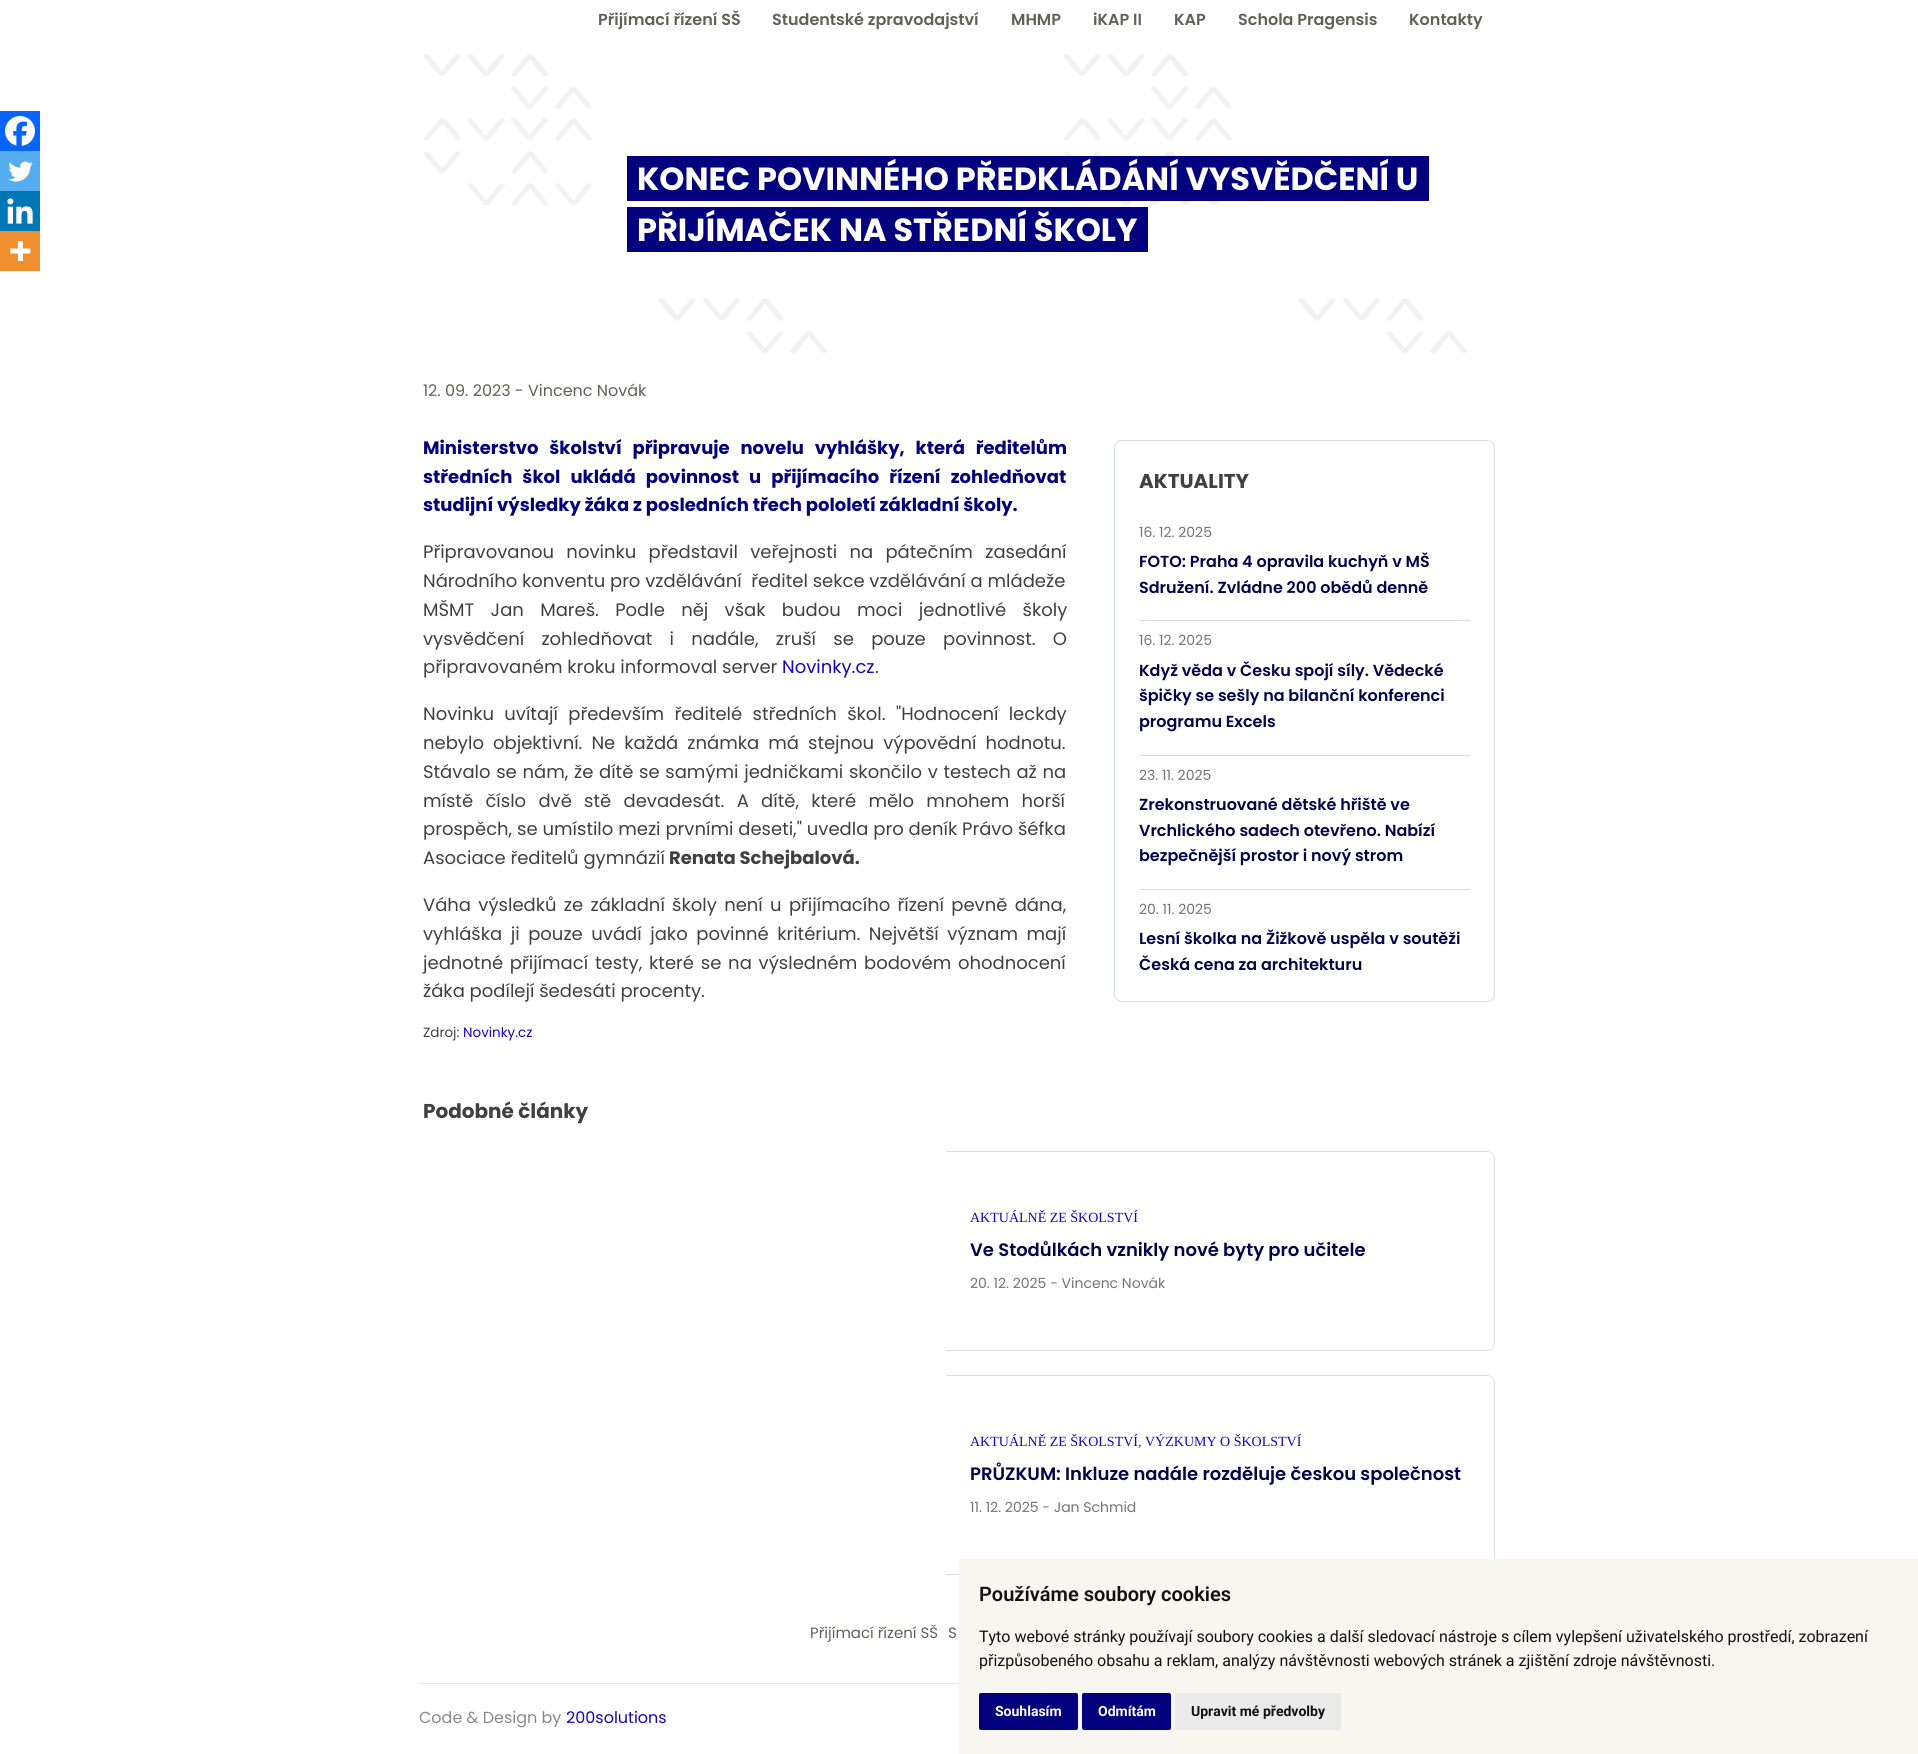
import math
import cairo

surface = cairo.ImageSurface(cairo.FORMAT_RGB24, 1918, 1754)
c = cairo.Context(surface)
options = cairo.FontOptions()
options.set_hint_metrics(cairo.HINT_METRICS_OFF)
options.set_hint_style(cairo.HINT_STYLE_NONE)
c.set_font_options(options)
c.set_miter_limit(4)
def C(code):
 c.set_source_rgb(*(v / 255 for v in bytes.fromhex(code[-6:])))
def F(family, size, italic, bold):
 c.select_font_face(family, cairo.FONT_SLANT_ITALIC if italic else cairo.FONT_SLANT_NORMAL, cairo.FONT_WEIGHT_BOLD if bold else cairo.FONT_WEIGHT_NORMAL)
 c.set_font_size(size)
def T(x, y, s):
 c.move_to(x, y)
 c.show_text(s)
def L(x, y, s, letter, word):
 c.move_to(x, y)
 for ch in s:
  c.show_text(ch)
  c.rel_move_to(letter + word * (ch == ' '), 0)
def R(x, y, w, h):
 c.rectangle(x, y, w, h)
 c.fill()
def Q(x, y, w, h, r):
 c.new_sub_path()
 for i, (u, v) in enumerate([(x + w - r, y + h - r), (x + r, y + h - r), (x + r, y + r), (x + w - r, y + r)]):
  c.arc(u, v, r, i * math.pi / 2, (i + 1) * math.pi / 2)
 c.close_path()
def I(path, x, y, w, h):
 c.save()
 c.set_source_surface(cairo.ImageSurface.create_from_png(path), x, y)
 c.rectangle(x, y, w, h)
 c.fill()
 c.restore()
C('ffffff')
c.paint()
F('Poppins SemiBold',16,0,0)
C('636055')
T(598,25,'Přijímací řízení SŠ')
T(772,25,'Studentské zpravodajství')
T(1011,25,'MHMP')
T(1093,25,'iKAP II')
T(1174,25,'KAP')
T(1238,25,'Schola Pragensis')
T(1409,25,'Kontakty')
I('1.png',423,54,1044,300)
C('03017e')
R(637,156,782,45)
F('Poppins',32,0,1)
C('ffffff')
T(637,190,'KONEC POVINNÉHO PŘEDKLÁDÁNÍ VYSVĚDČENÍ U')
C('03017e')
c.new_path()
c.move_to(627,156)
c.line_to(627,201)
c.line_to(1409,201)
c.line_to(637,201)
c.line_to(637,156)
c.close_path()
c.fill()
c.new_path()
c.move_to(647,201)
c.line_to(1429,201)
c.line_to(1429,156)
c.line_to(1419,156)
c.line_to(1419,201)
c.close_path()
c.fill()
R(637,207,501,45)
C('ffffff')
T(637,241,'PŘIJÍMAČEK NA STŘEDNÍ ŠKOLY')
C('03017e')
c.new_path()
c.move_to(627,207)
c.line_to(627,252)
c.line_to(1128,252)
c.line_to(637,252)
c.line_to(637,207)
c.close_path()
c.fill()
c.new_path()
c.move_to(647,252)
c.line_to(1148,252)
c.line_to(1148,207)
c.line_to(1138,207)
c.line_to(1138,252)
c.close_path()
c.fill()
F('Poppins',16,0,0)
C('636055')
T(423,396,'12. 09. 2023 - Vincenc Novák')
C('0765fe')
R(0,111,40,40)
I('2.png',5,116,30,30)
C('55acee')
R(0,151,40,40)
I('3.png',8,161,25,21)
C('0077b5')
R(0,191,40,40)
I('4.png',7,198,26,26)
C('ee8e2d')
R(0,231,40,40)
I('5.png',10,241,21,20)
F('Poppins',18,0,1)
C('030179')
L(423,454,'Ministerstvo školství připravuje novelu vyhlášky, která ředitelům',0,7)
L(423,483,'středních škol ukládá povinnost u přijímacího řízení zohledňovat',0,6.25)
T(423,511,'studijní výsledky žáka z posledních třech pololetí základní školy.')
F('Poppins',18,0,0)
C('404040')
L(423,558,'Připravovanou novinku představil veřejnosti na pátečním zasedání',0,7.5)
T(423,587,'Národního konventu pro vzdělávání  ředitel sekce vzdělávání a mládeže')
L(423,616,'MŠMT Jan Mareš. Podle něj však budou moci jednotlivé školy',0,11.5)
L(423,645,'vysvědčení zohledňovat i nadále, zruší se pouze povinnost. O',0,12.5)
T(423,673,'připravovaném kroku informoval server')
C('1806b6')
T(782,673,'Novinky.cz')
C('404040')
T(875,673,'.')
L(423,720,'Novinku uvítají především ředitelé středních škol. "Hodnocení leckdy',0,5.5)
L(423,749,'nebylo objektivní. Ne každá známka má stejnou výpovědní hodnotu.',0,4.25)
L(423,778,'Stávalo se nám, že dítě se samými jedničkami skončilo v testech až na',0,.9)
L(423,807,'místě číslo dvě stě devadesát. A dítě, které mělo mnohem horší',0,7.5)
L(423,835,'prospěch, se umístilo mezi prvními deseti," uvedla pro deník Právo šéfka',0,.1)
T(423,864,'Asociace ředitelů gymnázií')
F('Poppins',18,0,1)
T(669,864,'Renata Schejbalová.')
F('Poppins',18,0,0)
L(423,911,'Váha výsledků ze základní školy není u přijímacího řízení pevně dána,',0,2.5)
L(423,940,'vyhláška ji pouze uvádí jako povinné kritérium. Největší význam mají',0,3.75)
L(423,969,'jednotné přijímací testy, které se na výsledném bodovém ohodnocení',0,2)
T(423,997,'žáka podílejí šedesáti procenty.')
F('Poppins',13.5,0,0)
T(423,1037,'Zdroj:')
C('1806b6')
T(463,1037,'Novinky.cz')
Q(1114.5,440.5,380,561,7.5)
C('d8dde5')
c.set_line_width(1)
c.stroke()
F('Poppins',20,0,1)
C('404040')
T(1139,488,'AKTUALITY')
F('Poppins',14,0,0)
C('737373')
T(1139,537,'16. 12. 2025')
F('Poppins SemiBold',16,0,0)
C('020349')
T(1139,567,'FOTO: Praha 4 opravila kuchyň v MŠ')
T(1139,593,'Sdružení. Zvládne 200 obědů denně')
C('d8dde5')
R(1139,620,331,1)
F('Poppins',14,0,0)
C('737373')
T(1139,645,'16. 12. 2025')
F('Poppins SemiBold',16,0,0)
C('020349')
T(1139,676,'Když věda v Česku spojí síly. Vědecké')
T(1139,701,'špičky se sešly na bilanční konferenci')
T(1139,727,'programu Excels')
C('d8dde5')
R(1139,755,331,1)
F('Poppins',14,0,0)
C('737373')
T(1139,780,'23. 11. 2025')
F('Poppins SemiBold',16,0,0)
C('020349')
T(1139,810,'Zrekonstruované dětské hřiště ve')
T(1139,836,'Vrchlického sadech otevřeno. Nabízí')
T(1139,861,'bezpečnější prostor i nový strom')
C('d8dde5')
R(1139,889,331,1)
F('Poppins',14,0,0)
C('737373')
T(1139,914,'20. 11. 2025')
F('Poppins SemiBold',16,0,0)
C('020349')
T(1139,944,'Lesní školka na Žižkově uspěla v soutěži')
T(1139,970,'Česká cena za architekturu')
F('Poppins',20,0,1)
C('404040')
T(423,1118,'Podobné články')
C('d8dde5')
c.set_fill_rule(cairo.FILL_RULE_EVEN_ODD)
c.new_path()
c.move_to(946,1151)
c.line_to(1487,1151)
c.curve_to(1491,1151,1495,1155,1495,1159)
c.line_to(1495,1343)
c.curve_to(1495,1347,1491,1351,1487,1351)
c.line_to(946,1351)
c.close_path()
c.move_to(946,1152)
c.line_to(1487,1152)
c.curve_to(1491,1152,1494,1155,1494,1159)
c.line_to(1494,1343)
c.curve_to(1494,1347,1491,1350,1487,1350)
c.line_to(946,1350)
c.close_path()
c.fill()
F('Liberation Serif',14,0,0)
C('1806b6')
T(970,1222,'AKTUÁLNĚ ZE ŠKOLSTVÍ')
F('Poppins SemiBold',18,0,0)
C('020349')
T(970,1256,'Ve Stodůlkách vznikly nové byty pro učitele')
F('Poppins',14,0,0)
C('737373')
T(970,1288,'20. 12. 2025 - Vincenc Novák')
C('d8dde5')
c.new_path()
c.move_to(946,1375)
c.line_to(1487,1375)
c.curve_to(1491,1375,1495,1379,1495,1383)
c.line_to(1495,1567)
c.curve_to(1495,1571,1491,1575,1487,1575)
c.line_to(946,1575)
c.close_path()
c.move_to(946,1376)
c.line_to(1487,1376)
c.curve_to(1491,1376,1494,1379,1494,1383)
c.line_to(1494,1567)
c.curve_to(1494,1571,1491,1574,1487,1574)
c.line_to(946,1574)
c.close_path()
c.fill()
F('Liberation Serif',14,0,0)
C('1806b6')
T(970,1446,'AKTUÁLNĚ ZE ŠKOLSTVÍ')
C('404040')
T(1138,1446,',')
C('1806b6')
T(1145,1446,'VÝZKUMY O ŠKOLSTVÍ')
F('Poppins SemiBold',18,0,0)
C('020349')
T(970,1480,'PRŮZKUM: Inkluze nadále rozděluje českou společnost')
F('Poppins',14,0,0)
C('737373')
T(970,1512,'11. 12. 2025 - Jan Schmid')
F('Poppins',15,0,0)
C('636055')
T(810,1638,'Přijímací řízení SŠ')
T(948,1638,'S')
C('e6e6e6')
R(419,1683,540,1)
F('Poppins',16,0,0)
C('898989')
T(419,1723,'Code & Design by')
C('1806b6')
T(566,1723,'200solutions')
C('f8f6f0')
R(959,1559,959,195)
F('Roboto SemiBold',20,0,0)
C('111111')
T(979,1601,'Používáme soubory cookies')
F('Roboto',16,0,0)
T(979,1642,'Tyto webové stránky používají soubory cookies a další sledovací nástroje s cílem vylepšení uživatelského prostředí, zobrazení')
T(979,1666,'přizpůsobeného obsahu a reklam, analýzy návštěvnosti webových stránek a zjištění zdroje návštěvnosti.')
C('03017e')
Q(979,1693,99,37,2)
c.fill()
F('Roboto',14,0,1)
C('ffffff')
T(995,1716,'Souhlasím')
C('03017e')
Q(1082,1693,89,37,2)
c.fill()
C('ffffff')
T(1098,1716,'Odmítám')
C('eaeaea')
Q(1175,1693,166,37,2)
c.fill()
C('111111')
T(1191,1716,'Upravit mé předvolby')
surface.write_to_png('o.png')
